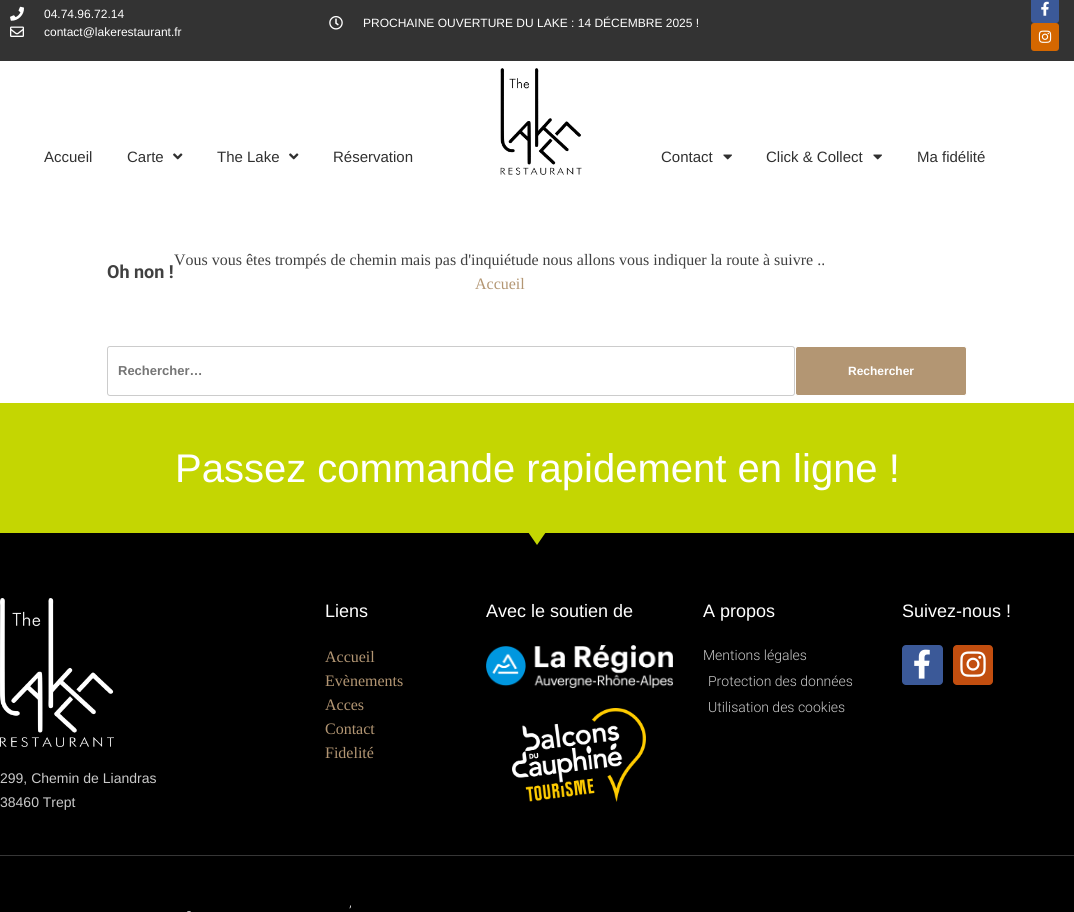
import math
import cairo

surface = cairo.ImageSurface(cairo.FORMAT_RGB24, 1074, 912)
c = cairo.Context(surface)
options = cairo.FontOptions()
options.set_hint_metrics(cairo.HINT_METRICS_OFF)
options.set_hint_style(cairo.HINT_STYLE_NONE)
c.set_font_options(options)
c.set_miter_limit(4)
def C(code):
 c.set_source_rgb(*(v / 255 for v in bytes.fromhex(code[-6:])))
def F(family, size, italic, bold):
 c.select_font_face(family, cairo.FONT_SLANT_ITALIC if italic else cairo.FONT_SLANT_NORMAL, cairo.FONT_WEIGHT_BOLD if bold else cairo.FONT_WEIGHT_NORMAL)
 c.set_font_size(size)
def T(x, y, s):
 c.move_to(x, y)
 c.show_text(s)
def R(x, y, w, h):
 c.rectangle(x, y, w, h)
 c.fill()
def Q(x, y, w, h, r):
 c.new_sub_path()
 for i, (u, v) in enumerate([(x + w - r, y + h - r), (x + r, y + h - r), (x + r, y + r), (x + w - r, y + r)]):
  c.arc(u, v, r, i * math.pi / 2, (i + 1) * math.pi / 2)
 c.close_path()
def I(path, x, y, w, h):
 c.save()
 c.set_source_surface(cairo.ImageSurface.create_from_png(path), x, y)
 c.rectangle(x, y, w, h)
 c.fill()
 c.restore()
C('ffffff')
c.paint()
C('333333')
R(0,0,1074,61)
I('1.png',10,6,14,15)
F('Liberation Sans',12,0,0)
C('ffffff')
T(44,18,'04.74.96.72.14')
I('2.png',10,26,14,11)
T(44,36,'contact@lakerestaurant.fr')
I('3.png',329,16,14,14)
T(363,27,'PROCHAINE OUVERTURE DU LAKE : 14 DÉCEMBRE 2025 !')
C('3b5998')
Q(1031,-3,28,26,3)
c.fill()
I('4.png',1041,1,8,15)
C('d46700')
Q(1031,23,28,28,3)
c.fill()
I('5.png',1038,30,14,13)
F('Liberation Sans',15,0,0)
C('303030')
T(44,162,'Accueil')
T(127,162,'Carte')
I('6.png',173,153,10,7)
T(217,162,'The Lake')
I('6.png',289,153,10,7)
T(333,162,'Réservation')
I('7.png',500,68,82,107)
T(661,162,'Contact')
I('8.png',723,154,9,6)
T(766,162,'Click & Collect')
I('8.png',873,154,9,6)
T(917,162,'Ma fidélité')
F('Roboto',18,0,1)
C('404040')
T(107,278,'Oh non !')
F('Liberation Serif',16,0,0)
T(174,265,'Vous vous êtes trompés de chemin mais pas d\'inquiétude nous allons vous indiquer la route à suivre ..')
C('b39673')
T(475,289,'Accueil')
Q(107.5,346.5,687,49,2.5)
C('cccccc')
c.set_line_width(1)
c.stroke()
F('Liberation Sans',13,0,1)
C('757575')
T(118,375,'Rechercher…')
C('b39673')
Q(795.5,346.5,171,49,2.5)
c.fill_preserve()
C('ffffff')
c.stroke()
F('Liberation Sans',12,0,1)
T(848,375,'Rechercher')
C('c4d602')
R(0,403,1074,130)
F('Liberation Sans',40,0,0)
C('ffffff')
T(175,482,'Passez commande rapidement en ligne !')
C('000000')
R(0,533,1074,379)
C('c4d602')
c.new_path()
c.move_to(537,545)
c.line_to(528,532)
c.line_to(546,532)
c.close_path()
c.fill()
F('Liberation Sans',18,0,0)
C('ffffff')
T(325,617,'Liens')
F('Liberation Serif',16,0,0)
C('b39673')
T(325,662,'Accueil')
T(325,686,'Evènements')
T(325,710,'Acces')
T(325,734,'Contact')
T(325,758,'Fidelité')
F('Liberation Sans',18,0,0)
C('ffffff')
T(486,617,'Avec le soutien de')
I('9.png',486,645,187,43)
I('10.png',512,708,134,94)
T(703,617,'A propos')
F('Roboto Light',14,0,0)
C('c9c9c9')
T(703,660,'Mentions légales')
T(708,686,'Protection des données')
T(708,712,'Utilisation des cookies')
F('Liberation Sans',18,0,0)
C('ffffff')
T(902,617,'Suivez-nous !')
C('3b5998')
Q(902,645,41,40,4)
c.fill()
I('11.png',914,649,16,30)
C('c24e0f')
Q(953,645,40,40,4)
c.fill()
I('12.png',960,651,26,26)
I('13.png',0,598,114,149)
F('Liberation Sans',14,0,0)
C('c9c9c9')
T(0,783,'299, Chemin de Liandras')
T(0,807,'38460 Trept')
C('363636')
R(0,855,1074,1)
F('Roboto Light',14,0,0)
C('ffffff')
T(349,916,'’')
T(187,916,'-')
surface.write_to_png('o.png')
